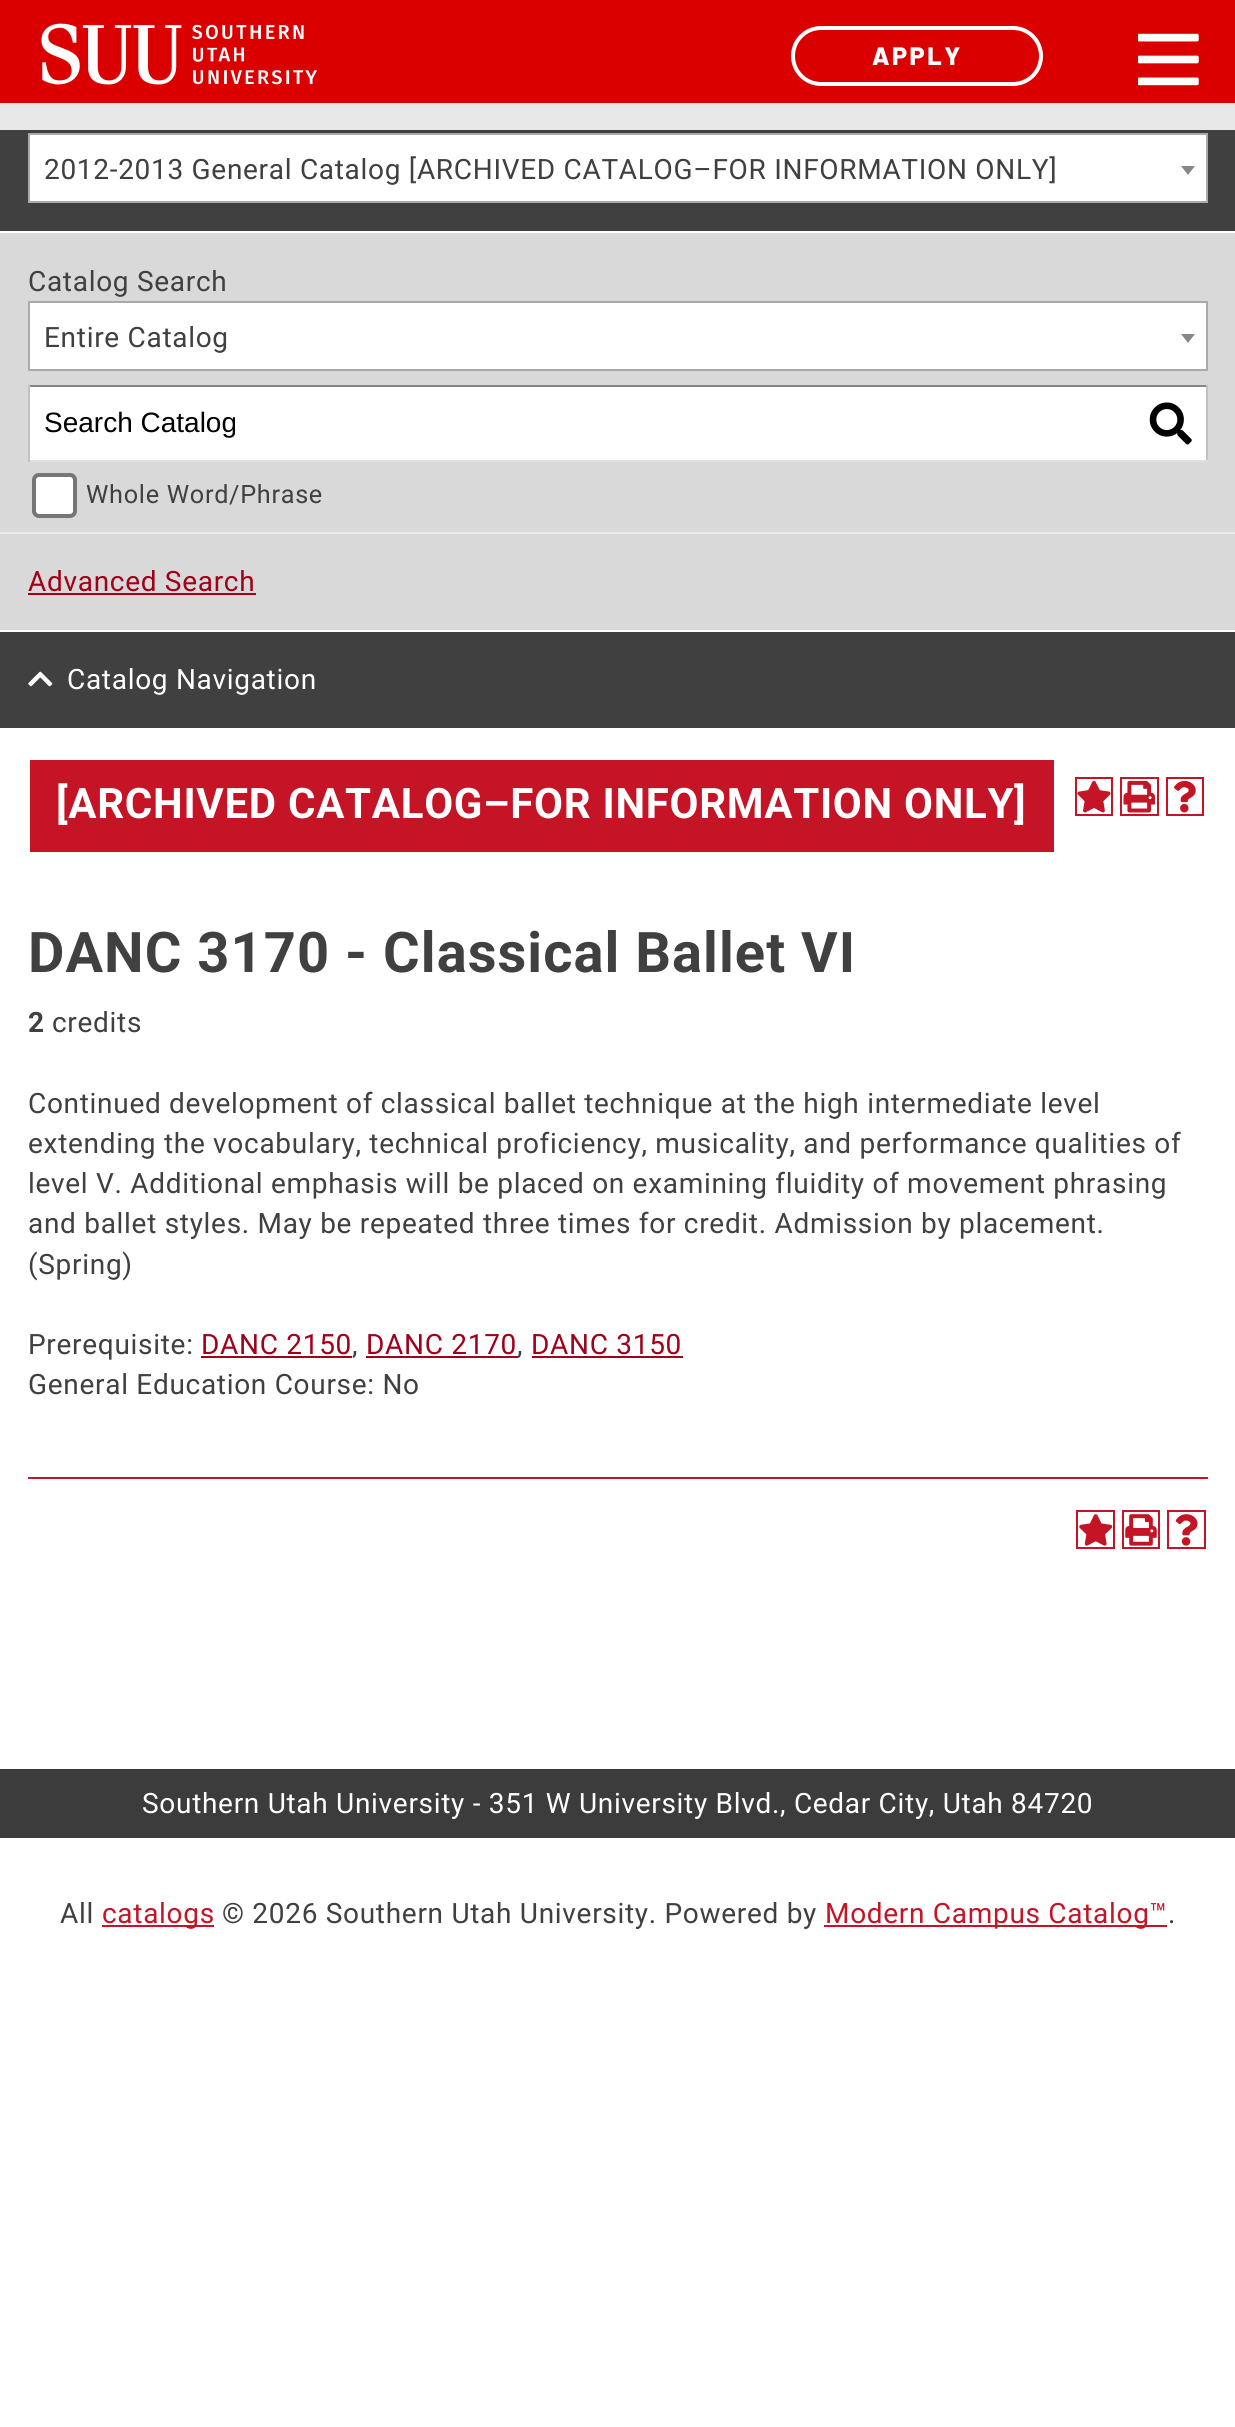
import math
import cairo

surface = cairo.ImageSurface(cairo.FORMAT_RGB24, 1235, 2427)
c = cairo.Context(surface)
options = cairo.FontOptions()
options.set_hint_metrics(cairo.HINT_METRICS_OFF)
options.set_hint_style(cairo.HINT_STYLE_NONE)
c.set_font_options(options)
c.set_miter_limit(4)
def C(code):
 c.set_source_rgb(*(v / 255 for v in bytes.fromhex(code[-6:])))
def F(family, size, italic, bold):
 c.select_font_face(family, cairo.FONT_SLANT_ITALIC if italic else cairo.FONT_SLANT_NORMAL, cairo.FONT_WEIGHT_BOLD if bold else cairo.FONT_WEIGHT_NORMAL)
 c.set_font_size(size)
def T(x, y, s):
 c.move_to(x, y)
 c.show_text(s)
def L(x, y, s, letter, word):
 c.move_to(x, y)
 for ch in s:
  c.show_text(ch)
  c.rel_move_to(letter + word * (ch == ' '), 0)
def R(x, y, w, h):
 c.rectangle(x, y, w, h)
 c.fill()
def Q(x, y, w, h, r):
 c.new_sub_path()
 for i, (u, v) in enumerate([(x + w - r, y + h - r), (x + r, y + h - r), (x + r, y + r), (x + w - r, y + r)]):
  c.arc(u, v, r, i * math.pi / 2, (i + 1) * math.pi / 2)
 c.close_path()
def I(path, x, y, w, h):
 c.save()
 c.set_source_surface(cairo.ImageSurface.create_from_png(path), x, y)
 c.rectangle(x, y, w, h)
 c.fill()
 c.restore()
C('ffffff')
c.paint()
C('db0000')
R(0,0,1235,103)
C('e7e7e7')
R(0,103,1235,27)
I('1.png',41,23,276,62)
Q(793,28,248,56,28)
C('ffffff')
c.set_line_width(4)
c.stroke()
F('Barlow ExtraBold',25.25,0,0)
L(872,65,'APPLY',2.5,0)
I('2.png',1138,33,61,53)
C('404040')
R(0,130,1235,101)
C('ffffff')
c.rectangle(29,134,1178,68)
c.fill_preserve()
C('aaaaaa')
c.set_line_width(2)
c.stroke()
F('Roboto',28,0,0)
C('404040')
L(44,179,'2012-2013 General Catalog [ARCHIVED CATALOG–FOR INFORMATION ONLY]',.7,0)
C('888888')
c.new_path()
c.move_to(1181,166)
c.line_to(1195,166)
c.line_to(1188,175)
c.close_path()
c.fill()
C('d9d9d9')
R(0,233,1235,397)
C('404040')
L(28,291,'Catalog Search',.7,0)
C('ffffff')
c.rectangle(29,302,1178,68)
c.fill_preserve()
C('aaaaaa')
c.stroke()
C('404040')
L(44,347,'Entire Catalog',.7,0)
C('888888')
c.new_path()
c.move_to(1181,334)
c.line_to(1195,334)
c.line_to(1188,343)
c.close_path()
c.fill()
C('ffffff')
R(30,387,1176,73)
C('848484')
R(28,385,1180,2)
C('c1c1c1')
R(1206,385,2,77)
C('e1e1e1')
R(28,460,1180,2)
C('c1c1c1')
R(28,385,2,77)
F('Liberation Sans',28,0,0)
C('000000')
T(44,432,'Search Catalog')
I('3.png',1149,402,43,43)
C('ffffff')
Q(34,475,41,41,5)
c.fill_preserve()
C('767676')
c.set_line_width(4)
c.stroke()
F('Roboto',25.25,0,0)
C('404040')
L(86,503,'Whole Word/Phrase',.7,0)
C('ececec')
R(0,532,1235,2)
F('Roboto',28,0,0)
C('a1001a')
L(28,591,'Advanced Search',.7,0)
R(28,593,228,2)
C('404040')
R(0,632,1235,96)
I('4.png',28,671,25,16)
C('ffffff')
L(67,689,'Catalog Navigation',.7,0)
C('c41425')
R(30,760,1024,92)
F('Roboto',42,0,1)
C('ffffff')
L(56,818,'[ARCHIVED CATALOG–FOR INFORMATION ONLY]',.7,0)
c.rectangle(1076,778,36,37)
C('c41425')
c.set_line_width(2)
c.stroke()
I('5.png',1077,781,34,32)
c.rectangle(1121,778,37,37)
c.stroke()
I('6.png',1123,780,32,33)
c.rectangle(1167,778,36,37)
c.stroke()
I('7.png',1174,780,22,33)
F('Roboto',56,0,1)
C('404040')
L(28,972,'DANC 3170 - Classical Ballet VI',1.05,0)
F('Roboto',28,0,1)
L(28,1032,'2',.7,0)
F('Roboto',28,0,0)
L(52,1032,'credits',.7,0)
L(28,1113,'Continued development of classical ballet technique at the high intermediate level',.7,0)
L(28,1153,'extending the vocabulary, technical proficiency, musicality, and performance qualities of',.7,0)
L(28,1193,'level V. Additional emphasis will be placed on examining fluidity of movement phrasing',.7,0)
L(28,1233,'and ballet styles. May be repeated three times for credit. Admission by placement.',.7,0)
L(28,1274,'(Spring)',.7,0)
L(28,1354,'Prerequisite:',.7,0)
C('a1001a')
L(201,1354,'DANC 2150',.7,0)
R(201,1356,151,2)
C('404040')
L(352,1354,',',.7,0)
C('a1001a')
L(366,1354,'DANC 2170',.7,0)
R(366,1356,152,2)
C('404040')
L(517,1354,',',.7,0)
C('a1001a')
L(531,1354,'DANC 3150',.7,0)
R(532,1356,151,2)
C('404040')
L(28,1394,'General Education Course: No',.7,0)
C('c41425')
R(28,1477,1180,2)
c.rectangle(1077,1511,37,37)
c.stroke()
I('8.png',1079,1514,34,32)
c.rectangle(1123,1511,36,37)
c.stroke()
I('9.png',1125,1514,32,32)
c.rectangle(1168,1511,37,37)
c.stroke()
I('10.png',1175,1514,23,32)
C('3c3c3c')
R(0,1769,1235,69)
C('ffffff')
L(142,1813,'Southern Utah University - 351 W University Blvd., Cedar City, Utah 84720',.7,0)
C('404040')
L(60,1923,'All',.7,0)
C('c41425')
R(102,1925,112,2)
L(102,1923,'catalogs',.7,0)
C('404040')
L(222,1923,'© 2026 Southern Utah University. Powered by',.7,0)
C('c41425')
R(824,1925,343,2)
L(825,1923,'Modern Campus Catalog™',.7,0)
C('404040')
L(1168,1923,'.',.7,0)
surface.write_to_png('o.png')
